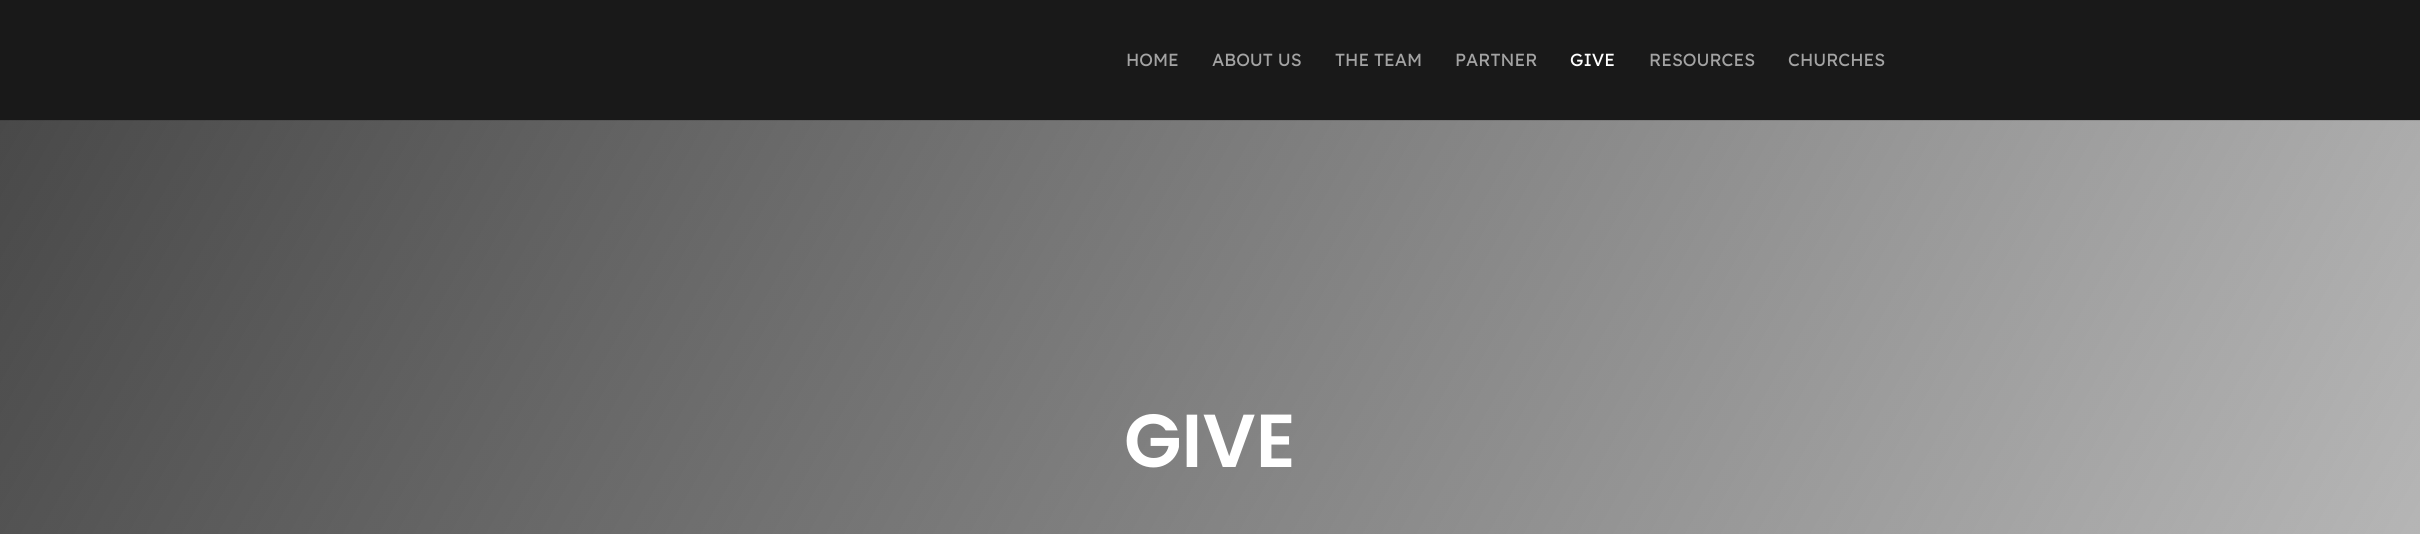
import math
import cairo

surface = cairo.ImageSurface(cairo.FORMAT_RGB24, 2420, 534)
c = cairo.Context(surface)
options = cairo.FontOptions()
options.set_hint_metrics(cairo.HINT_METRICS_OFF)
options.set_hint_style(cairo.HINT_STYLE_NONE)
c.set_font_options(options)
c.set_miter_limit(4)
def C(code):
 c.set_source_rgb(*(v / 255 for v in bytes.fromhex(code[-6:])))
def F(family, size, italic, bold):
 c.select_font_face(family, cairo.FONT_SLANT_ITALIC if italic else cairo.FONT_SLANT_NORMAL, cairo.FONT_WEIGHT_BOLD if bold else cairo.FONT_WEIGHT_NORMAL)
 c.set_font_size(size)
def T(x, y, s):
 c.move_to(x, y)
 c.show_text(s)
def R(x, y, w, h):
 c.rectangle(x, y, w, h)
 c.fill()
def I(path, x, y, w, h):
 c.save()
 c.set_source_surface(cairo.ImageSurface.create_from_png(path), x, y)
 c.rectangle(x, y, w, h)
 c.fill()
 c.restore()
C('ffffff')
c.paint()
I('1.png',0,120,2420,414)
c.set_source_rgba(0,0,0,0.1)
R(0,120,2420,1)
C('191919')
R(0,0,2420,120)
F('Lexend Deca',17.5,0,0)
C('a3a3a3')
T(1126,66,'HOME')
T(1212,66,'ABOUT US')
T(1335,66,'THE TEAM')
T(1455,66,'PARTNER')
C('ffffff')
T(1570,66,'GIVE')
C('a3a3a3')
T(1649,66,'RESOURCES')
T(1788,66,'CHURCHES')
F('Poppins SemiBold',75,0,0)
C('ffffff')
T(1124,467,'GIVE')
surface.write_to_png('o.png')
